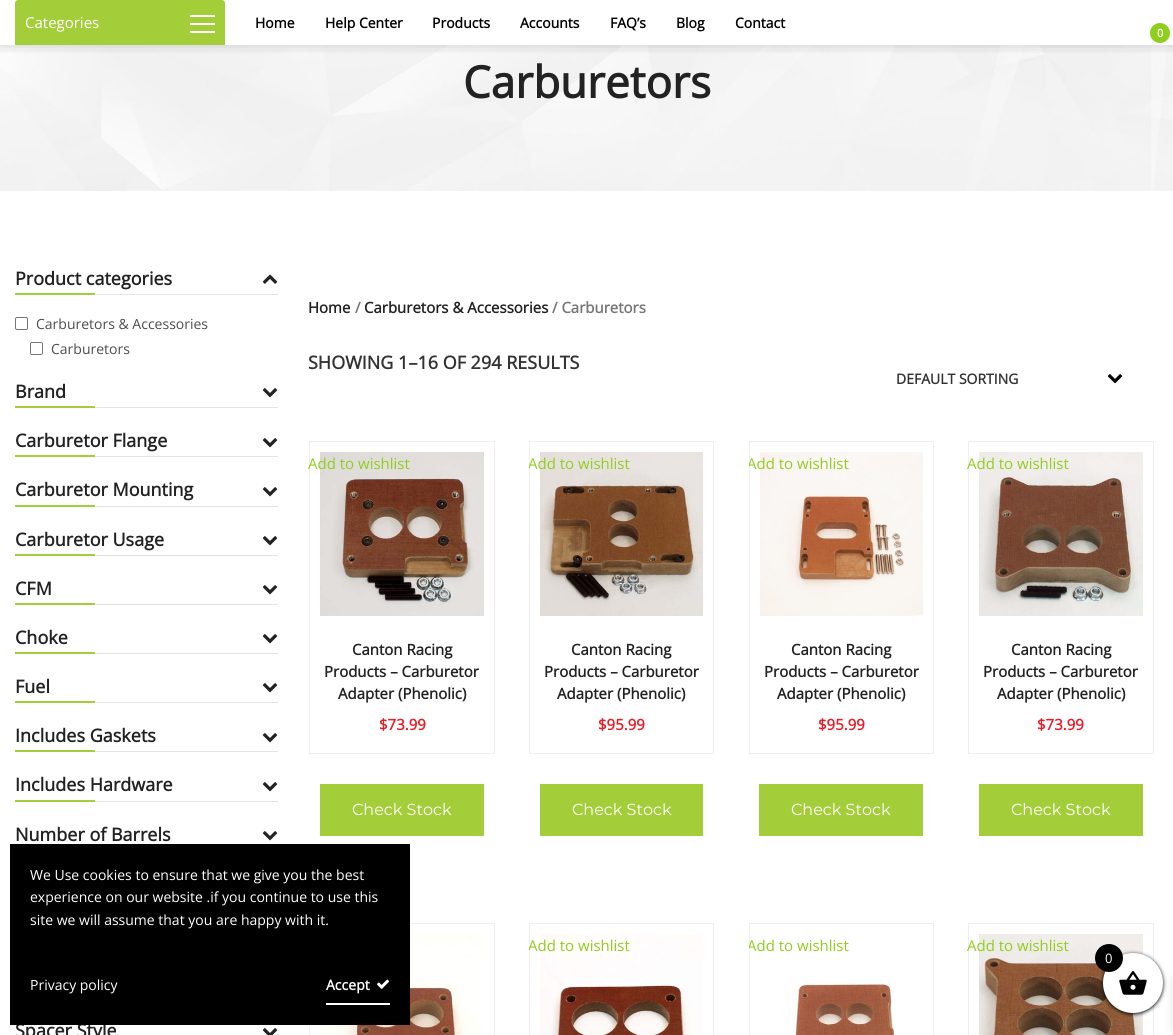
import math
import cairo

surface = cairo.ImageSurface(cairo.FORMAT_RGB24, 1173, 1035)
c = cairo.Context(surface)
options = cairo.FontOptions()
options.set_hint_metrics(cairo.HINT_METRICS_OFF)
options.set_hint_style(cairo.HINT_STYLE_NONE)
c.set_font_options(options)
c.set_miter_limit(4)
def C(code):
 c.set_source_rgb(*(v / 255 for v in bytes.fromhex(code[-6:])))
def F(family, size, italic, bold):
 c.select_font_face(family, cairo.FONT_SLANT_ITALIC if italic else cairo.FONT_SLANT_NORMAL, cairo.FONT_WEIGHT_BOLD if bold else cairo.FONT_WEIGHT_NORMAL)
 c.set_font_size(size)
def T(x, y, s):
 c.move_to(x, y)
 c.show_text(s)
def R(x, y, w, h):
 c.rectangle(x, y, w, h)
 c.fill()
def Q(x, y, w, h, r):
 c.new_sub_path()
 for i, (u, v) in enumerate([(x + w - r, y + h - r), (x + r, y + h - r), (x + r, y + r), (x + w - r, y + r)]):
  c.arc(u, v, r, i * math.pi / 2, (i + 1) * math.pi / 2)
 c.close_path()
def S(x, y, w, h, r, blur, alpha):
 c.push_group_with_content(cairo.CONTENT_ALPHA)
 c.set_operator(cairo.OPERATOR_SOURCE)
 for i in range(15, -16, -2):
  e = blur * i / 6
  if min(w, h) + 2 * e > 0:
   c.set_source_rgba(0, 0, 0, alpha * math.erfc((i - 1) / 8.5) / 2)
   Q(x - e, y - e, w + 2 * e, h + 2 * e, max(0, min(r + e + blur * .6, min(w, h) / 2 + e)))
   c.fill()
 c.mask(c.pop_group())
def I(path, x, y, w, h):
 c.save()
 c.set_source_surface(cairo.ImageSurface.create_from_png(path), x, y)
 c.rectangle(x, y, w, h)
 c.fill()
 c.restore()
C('ffffff')
c.paint()
I('1.png',0,45,1173,146)
c.save()
c.rectangle(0,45,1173,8)
c.clip()
C('000000')
S(-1,-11,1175,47,0,10,.5)
c.restore()
C('a3cd39')
c.new_path()
c.move_to(18,0)
c.line_to(222,0)
c.curve_to(223.5,0,225,1.5,225,3)
c.line_to(225,45)
c.line_to(15,45)
c.line_to(15,3)
c.curve_to(15,1.5,16.5,0,18,0)
c.close_path()
c.fill()
F('Open Sans',15,0,0)
C('ffffff')
T(25,28,'Categories')
R(190,23,25,2)
R(190,15,25,2)
R(190,31,25,2)
F('Open Sans',14,0,1)
C('000000')
T(255,28,'Home')
T(325,28,'Help Center')
T(432,28,'Products')
T(520,28,'Accounts')
T(610,28,'FAQ’s')
T(676,28,'Blog')
T(735,28,'Contact')
C('8fce1d')
c.new_path()
c.arc(1160,33,10,0,2 * math.pi)
c.fill()
F('Open Sans',11,0,1)
C('ffffff')
T(1157,37,'0')
F('Open Sans',44,0,1)
C('222222')
T(463,98,'Carburetors')
C('e3e3e3')
R(95,294,183,1)
F('Open Sans',18,0,1)
C('222222')
T(15,285,'Product categories')
I('2.png',262,274,16,10)
C('a3cd39')
R(15,293,80,2)
Q(15.5,317.5,12,12,1.5)
C('767676')
c.set_line_width(1)
c.stroke()
F('Open Sans',14,0,0)
C('4d4d4d')
T(36,329,'Carburetors & Accessories')
Q(30.5,342.5,12,12,1.5)
C('767676')
c.stroke()
C('4d4d4d')
T(51,354,'Carburetors')
C('e3e3e3')
R(95,407,183,1)
F('Open Sans',18,0,1)
C('222222')
T(15,398,'Brand')
I('3.png',262,388,16,10)
C('a3cd39')
R(15,406,80,2)
C('e3e3e3')
R(95,456,183,1)
C('222222')
T(15,447,'Carburetor Flange')
I('3.png',262,438,16,10)
C('a3cd39')
R(15,455,80,2)
C('e3e3e3')
R(95,506,183,1)
C('222222')
T(15,496,'Carburetor Mounting')
I('3.png',262,487,16,10)
C('a3cd39')
R(15,505,80,2)
C('e3e3e3')
R(95,555,183,1)
C('222222')
T(15,546,'Carburetor Usage')
I('3.png',262,536,16,10)
C('a3cd39')
R(15,554,80,2)
C('e3e3e3')
R(95,604,183,1)
C('222222')
T(15,595,'CFM')
I('3.png',262,585,16,10)
C('a3cd39')
R(15,603,80,2)
C('e3e3e3')
R(95,653,183,1)
C('222222')
T(15,644,'Choke')
I('3.png',262,634,16,10)
C('a3cd39')
R(15,652,80,2)
C('e3e3e3')
R(95,702,183,1)
C('222222')
T(15,693,'Fuel')
I('3.png',262,683,16,10)
C('a3cd39')
R(15,701,80,2)
C('e3e3e3')
R(95,751,183,1)
C('222222')
T(15,742,'Includes Gaskets')
I('3.png',262,733,16,10)
C('a3cd39')
R(15,750,80,2)
C('e3e3e3')
R(95,801,183,1)
C('222222')
T(15,791,'Includes Hardware')
I('3.png',262,782,16,10)
C('a3cd39')
R(15,800,80,2)
C('222222')
T(15,841,'Number of Barrels')
I('3.png',262,831,16,10)
T(15,1037,'Spacer Style')
I('4.png',262,1028,16,7)
F('Open Sans',15,0,1)
T(308,313,'Home')
C('767676')
T(355,313,'/')
C('222222')
T(364,313,'Carburetors & Accessories')
C('767676')
T(552,313,'/ Carburetors')
F('Open Sans',18,0,1)
C('333333')
T(308,369,'SHOWING 1–16 OF 294 RESULTS')
F('Open Sans',14,0,1)
T(896,384,'DEFAULT SORTING')
I('5.png',1107,374,16,10)
c.rectangle(309.5,441.5,185,312)
C('eeeeee')
c.stroke()
I('6.png',320,452,164,164)
F('Open Sans',15,0,0)
C('8fce1d')
T(308,469,'Add to wishlist')
F('Open Sans',15,0,1)
C('222222')
T(352,655,'Canton Racing')
T(324,677,'Products – Carburetor')
T(338,699,'Adapter (Phenolic)')
C('ea1b25')
T(379,730,'$73.99')
C('a3cd39')
R(320,784,164,52)
F('Montserrat',16,0,0)
C('ffffff')
T(352,815,'Check Stock')
c.rectangle(529.5,441.5,184,312)
C('eeeeee')
c.stroke()
I('7.png',540,452,163,164)
c.save()
c.rectangle(529,441,185,435)
c.clip()
F('Open Sans',15,0,0)
C('8fce1d')
T(528,469,'Add to wishlist')
c.restore()
F('Open Sans',15,0,1)
C('222222')
T(571,655,'Canton Racing')
T(544,677,'Products – Carburetor')
T(557,699,'Adapter (Phenolic)')
C('ea1b25')
T(598,730,'$95.99')
C('a3cd39')
R(540,784,163,52)
F('Montserrat',16,0,0)
C('ffffff')
T(572,815,'Check Stock')
c.rectangle(749.5,441.5,184,312)
C('eeeeee')
c.stroke()
I('8.png',760,452,163,164)
c.save()
c.rectangle(749,441,185,435)
c.clip()
F('Open Sans',15,0,0)
C('8fce1d')
T(747,469,'Add to wishlist')
c.restore()
F('Open Sans',15,0,1)
C('222222')
T(791,655,'Canton Racing')
T(764,677,'Products – Carburetor')
T(777,699,'Adapter (Phenolic)')
C('ea1b25')
T(818,730,'$95.99')
C('a3cd39')
R(759,784,164,52)
F('Montserrat',16,0,0)
C('ffffff')
T(791,815,'Check Stock')
c.rectangle(968.5,441.5,185,312)
C('eeeeee')
c.stroke()
I('9.png',979,452,164,164)
F('Open Sans',15,0,0)
C('8fce1d')
T(967,469,'Add to wishlist')
F('Open Sans',15,0,1)
C('222222')
T(1011,655,'Canton Racing')
T(983,677,'Products – Carburetor')
T(997,699,'Adapter (Phenolic)')
C('ea1b25')
T(1037,730,'$73.99')
C('a3cd39')
R(979,784,164,52)
F('Montserrat',16,0,0)
C('ffffff')
T(1011,815,'Check Stock')
c.rectangle(309.5,923.5,185,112)
C('eeeeee')
c.stroke()
I('10.png',320,934,164,101)
c.rectangle(529.5,923.5,184,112)
c.stroke()
I('11.png',540,934,163,101)
c.save()
c.rectangle(529,923,185,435)
c.clip()
F('Open Sans',15,0,0)
C('8fce1d')
T(528,951,'Add to wishlist')
c.restore()
c.rectangle(749.5,923.5,184,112)
c.stroke()
I('12.png',795,979,101,56)
c.save()
c.rectangle(749,923,185,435)
c.clip()
F('Open Sans',15,0,0)
C('8fce1d')
T(747,951,'Add to wishlist')
c.restore()
c.rectangle(968.5,923.5,185,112)
c.stroke()
I('13.png',979,934,164,101)
F('Open Sans',15,0,0)
C('8fce1d')
T(967,951,'Add to wishlist')
C('000000')
R(10,844,400,181)
F('Open Sans',14,0,0)
C('ffffff')
T(30,880,'We Use cookies to ensure that we give you the best')
T(30,902,'experience on our website .if you continue to use this')
T(30,925,'site we will assume that you are happy with it.')
T(30,990,'Privacy policy')
R(326,1003,64,2)
F('Open Sans',14,0,1)
T(326,990,'Accept')
I('14.png',377,979,12,10)
C('000000')
S(1103,954,60,60,30,2,1)
S(1173,978,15,52,0,5,.1)
C('ffffff')
c.arc(1133,983,30,0,2 * math.pi)
c.fill()
I('15.png',1119,971,28,24)
C('000000')
c.arc(1109,958,14,0,2 * math.pi)
c.fill()
F('Open Sans',13,0,0)
C('ffffff')
T(1105,963,'0')
surface.write_to_png('o.png')
